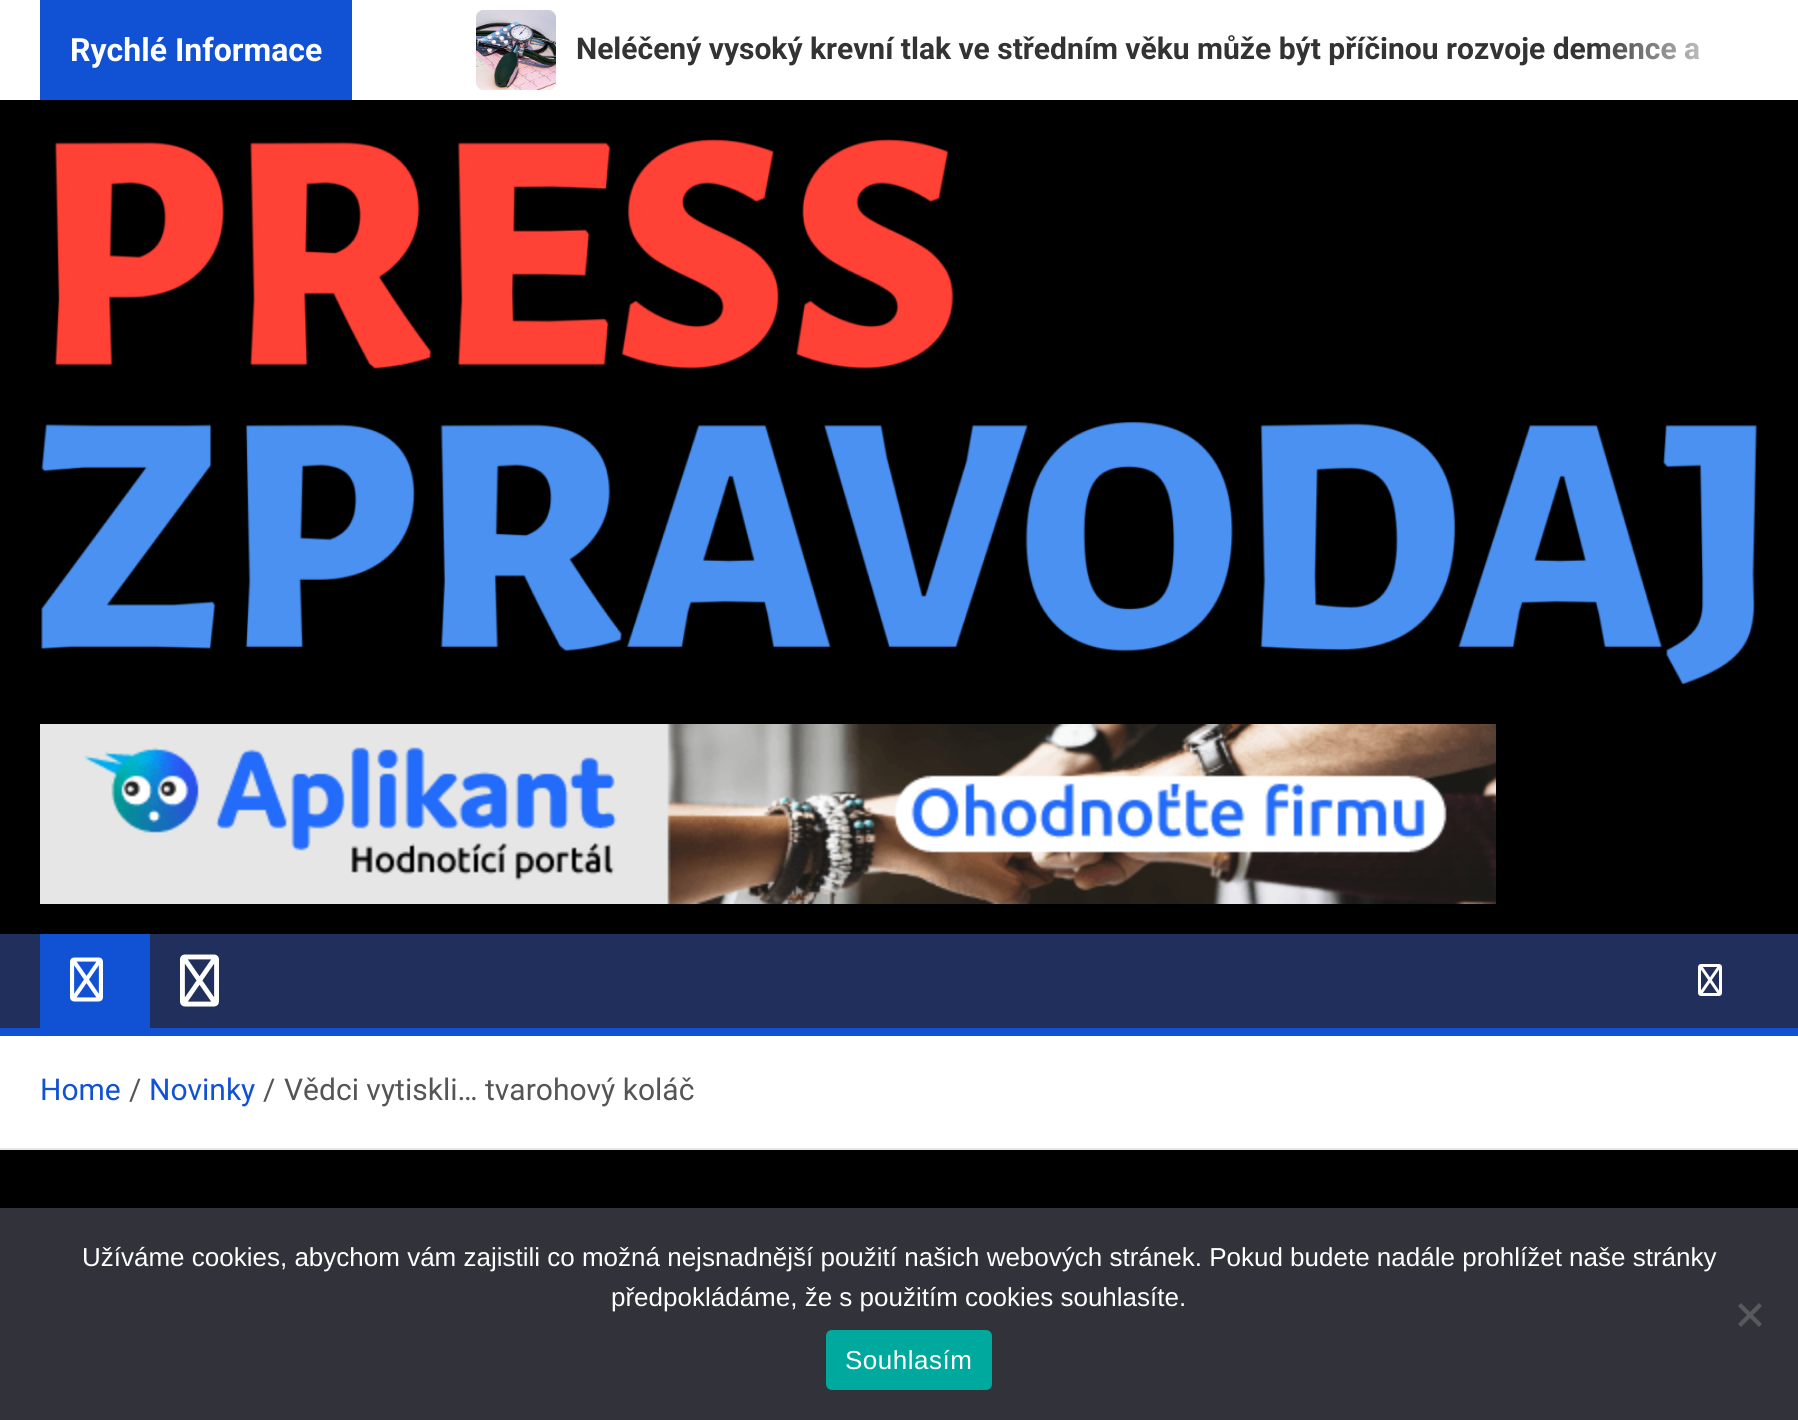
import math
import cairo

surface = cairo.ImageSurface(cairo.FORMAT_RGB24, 1798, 1420)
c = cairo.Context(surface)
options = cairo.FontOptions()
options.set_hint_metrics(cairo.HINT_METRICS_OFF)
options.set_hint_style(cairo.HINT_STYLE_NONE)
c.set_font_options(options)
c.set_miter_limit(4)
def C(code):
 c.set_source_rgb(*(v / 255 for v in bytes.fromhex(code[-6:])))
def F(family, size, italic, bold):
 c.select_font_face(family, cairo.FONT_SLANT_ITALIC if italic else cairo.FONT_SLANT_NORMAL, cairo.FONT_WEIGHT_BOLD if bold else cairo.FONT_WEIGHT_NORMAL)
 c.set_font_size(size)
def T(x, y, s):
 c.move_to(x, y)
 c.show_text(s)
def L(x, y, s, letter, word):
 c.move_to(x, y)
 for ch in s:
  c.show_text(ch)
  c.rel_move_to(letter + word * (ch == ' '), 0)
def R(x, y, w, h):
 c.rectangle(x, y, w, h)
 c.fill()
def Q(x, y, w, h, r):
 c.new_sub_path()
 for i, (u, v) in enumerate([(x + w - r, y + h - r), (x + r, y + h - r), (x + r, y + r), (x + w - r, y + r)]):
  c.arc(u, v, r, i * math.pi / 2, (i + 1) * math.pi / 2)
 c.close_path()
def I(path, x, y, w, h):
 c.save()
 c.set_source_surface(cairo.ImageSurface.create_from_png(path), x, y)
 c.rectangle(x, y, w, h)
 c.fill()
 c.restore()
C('000000')
c.paint()
C('ffffff')
R(0,0,1798,100)
C('1151d3')
R(40,0,312,100)
F('Roboto',32,0,1)
C('ffffff')
T(70,61,'Rychlé Informace')
C('dddddd')
Q(476,10,80,80,8)
c.fill()
I('1.png',476,10,80,80)
F('Roboto',30,0,1)
C('333333')
T(576,59,'Neléčený vysoký krevní tlak ve středním věku může být příčinou rozvoje demence a')
gradient = cairo.LinearGradient(1592,50,1752,50)
gradient.add_color_stop_rgba(0,1,1,1,0)
gradient.add_color_stop_rgba(1,1,1,1,1)
c.set_source(gradient)
R(1595,42,105,18)
I('2.png',41,139,1716,546)
I('3.png',40,724,1456,180)
C('202f5b')
R(0,934,1798,94)
C('1151d3')
R(40,934,110,94)
I('4.png',70,957,33,45)
I('5.png',180,954,39,53)
I('6.png',1698,964,24,32)
R(0,1028,1798,8)
C('ffffff')
R(0,1036,1798,112)
C('e6e6e6')
R(0,1148,1798,2)
F('Roboto',30,0,0)
C('1151d3')
T(40,1100,'Home')
C('555555')
T(129,1100,'/')
C('1151d3')
T(149,1100,'Novinky')
C('555555')
T(263,1100,'/')
T(284,1100,'Vědci vytiskli… tvarohový koláč')
C('32323a')
R(0,1208,1798,212)
F('Liberation Sans',26,0,0)
C('ffffff')
T(82,1266,'Užíváme cookies, abychom vám zajistili co možná nejsnadnější použití našich webových stránek. Pokud budete nadále prohlížet naše stránky')
T(611,1306,'předpokládáme, že s použitím cookies souhlasíte.')
C('59595d')
c.new_path()
c.move_to(1759,1303)
c.line_to(1762,1306)
c.line_to(1741,1327)
c.line_to(1738,1324)
c.close_path()
c.fill()
c.new_path()
c.move_to(1738,1306)
c.line_to(1741,1303)
c.line_to(1762,1324)
c.line_to(1759,1327)
c.close_path()
c.fill()
C('00a99d')
Q(826,1330,166,60,6)
c.fill()
C('ffffff')
L(845,1369,'Souhlasím',.5,0)
surface.write_to_png('o.png')
